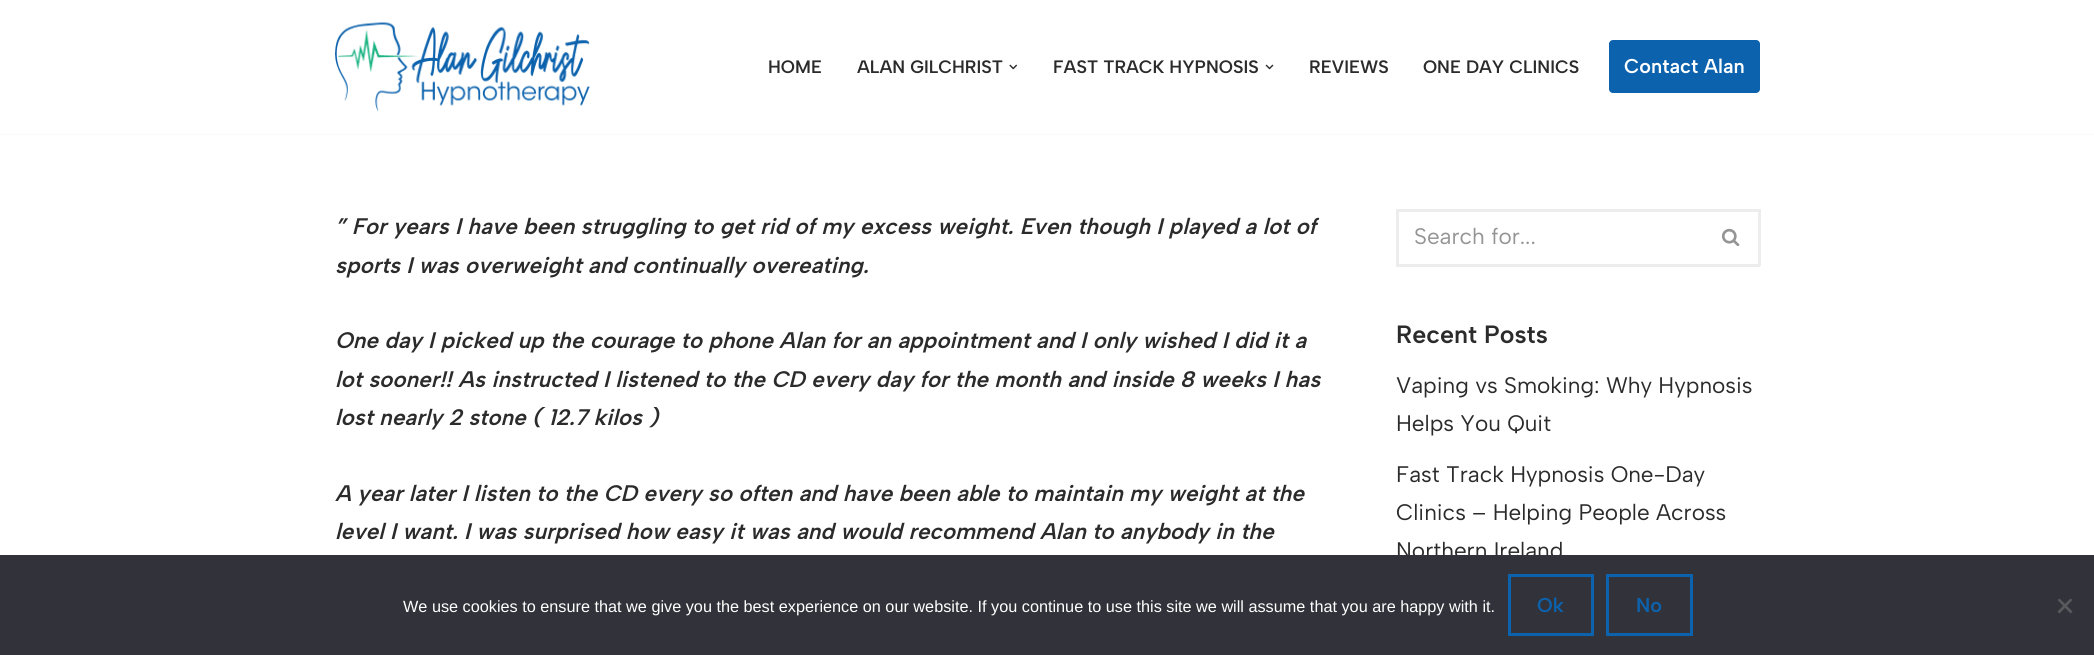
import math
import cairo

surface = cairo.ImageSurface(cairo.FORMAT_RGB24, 2094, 655)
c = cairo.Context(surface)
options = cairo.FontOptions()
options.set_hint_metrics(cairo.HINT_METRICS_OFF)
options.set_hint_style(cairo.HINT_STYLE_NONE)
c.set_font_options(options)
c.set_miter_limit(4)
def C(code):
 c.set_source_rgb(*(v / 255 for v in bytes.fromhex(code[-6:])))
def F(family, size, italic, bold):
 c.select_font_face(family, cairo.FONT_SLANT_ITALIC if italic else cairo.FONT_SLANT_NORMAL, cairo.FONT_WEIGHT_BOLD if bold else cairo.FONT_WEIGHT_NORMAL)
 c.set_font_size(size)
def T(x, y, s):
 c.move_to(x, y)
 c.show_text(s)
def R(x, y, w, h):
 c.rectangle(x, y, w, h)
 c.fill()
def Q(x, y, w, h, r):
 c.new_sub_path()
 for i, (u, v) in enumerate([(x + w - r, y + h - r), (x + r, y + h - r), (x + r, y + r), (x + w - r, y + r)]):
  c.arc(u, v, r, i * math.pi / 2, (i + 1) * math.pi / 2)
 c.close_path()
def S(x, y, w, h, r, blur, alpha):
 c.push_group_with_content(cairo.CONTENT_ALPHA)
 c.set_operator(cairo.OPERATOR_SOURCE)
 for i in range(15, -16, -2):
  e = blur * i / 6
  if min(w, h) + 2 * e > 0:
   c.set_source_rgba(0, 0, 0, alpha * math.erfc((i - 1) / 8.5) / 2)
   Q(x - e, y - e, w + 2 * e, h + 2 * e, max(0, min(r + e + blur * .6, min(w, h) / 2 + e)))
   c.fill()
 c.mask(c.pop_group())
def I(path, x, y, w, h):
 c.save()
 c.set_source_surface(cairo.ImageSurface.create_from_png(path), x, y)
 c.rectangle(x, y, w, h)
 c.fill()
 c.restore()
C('ffffff')
c.paint()
C('000000')
S(0,-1,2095,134,0,2,.1)
C('ffffff')
R(0,0,2094,134)
I('1.png',335,22,255,90)
F('Albert Sans SemiBold',18,0,0)
C('2b2b2b')
T(768,73,'HOME')
T(857,73,'ALAN GILCHRIST')
I('2.png',1009,64,8,6)
T(1053,73,'FAST TRACK HYPNOSIS')
I('3.png',1265,64,9,6)
T(1309,73,'REVIEWS')
T(1423,73,'ONE DAY CLINICS')
C('0c62ad')
Q(1609,40,151,53,4)
c.fill()
F('Albert Sans SemiBold',20,0,0)
C('ffffff')
T(1624,73,'Contact Alan')
F('Albert Sans SemiBold',22.5,1,0)
C('2b2b2b')
T(335,234,'” For years I have been struggling to get rid of my excess weight. Even though I played a lot of')
T(335,273,'sports I was overweight and continually overeating.')
T(335,348,'One day I picked up the courage to phone Alan for an appointment and I only wished I did it a')
T(335,387,'lot sooner!! As instructed I listened to the CD every day for the month and inside 8 weeks I has')
T(335,425,'lost nearly 2 stone ( 12.7 kilos )')
T(335,501,'A year later I listen to the CD every so often and have been able to maintain my weight at the')
T(335,539,'level I want. I was surprised how easy it was and would recommend Alan to anybody in the')
C('ededed')
R(1396,209,364,3)
R(1396,264,308,3)
R(1396,209,3,57)
F('Albert Sans',22.5,0,0)
C('959595')
T(1414,244,'Search for...')
C('ededed')
R(1758,209,3,57)
R(1704,264,56,3)
I('4.png',1721,228,19,18)
F('Albert Sans SemiBold',25,0,0)
C('2b2b2b')
T(1396,343,'Recent Posts')
F('Albert Sans',22.5,0,0)
T(1396,393,'Vaping vs Smoking: Why Hypnosis')
T(1396,431,'Helps You Quit')
T(1396,482,'Fast Track Hypnosis One-Day')
T(1396,520,'Clinics – Helping People Across')
T(1396,558,'Northern Ireland')
C('32323a')
R(0,555,2094,100)
F('Liberation Sans',16.25,0,0)
C('ffffff')
T(403,612,'We use cookies to ensure that we give you the best experience on our website. If you continue to use this site we will assume that you are happy with it.')
c.rectangle(1509.5,575.5,83,59)
C('0c62ad')
c.set_line_width(3)
c.stroke()
F('Albert Sans SemiBold',20,0,0)
T(1537,612,'Ok')
c.rectangle(1607.5,575.5,84,59)
c.stroke()
T(1636,612,'No')
C('59595d')
c.new_path()
c.move_to(2070.5,598.5)
c.line_to(2072.5,600)
c.line_to(2059.5,613.5)
c.line_to(2057.5,611.5)
c.close_path()
c.fill()
c.new_path()
c.move_to(2057.5,600)
c.line_to(2059.5,598.5)
c.line_to(2072.5,611.5)
c.line_to(2070.5,613.5)
c.close_path()
c.fill()
surface.write_to_png('o.png')
